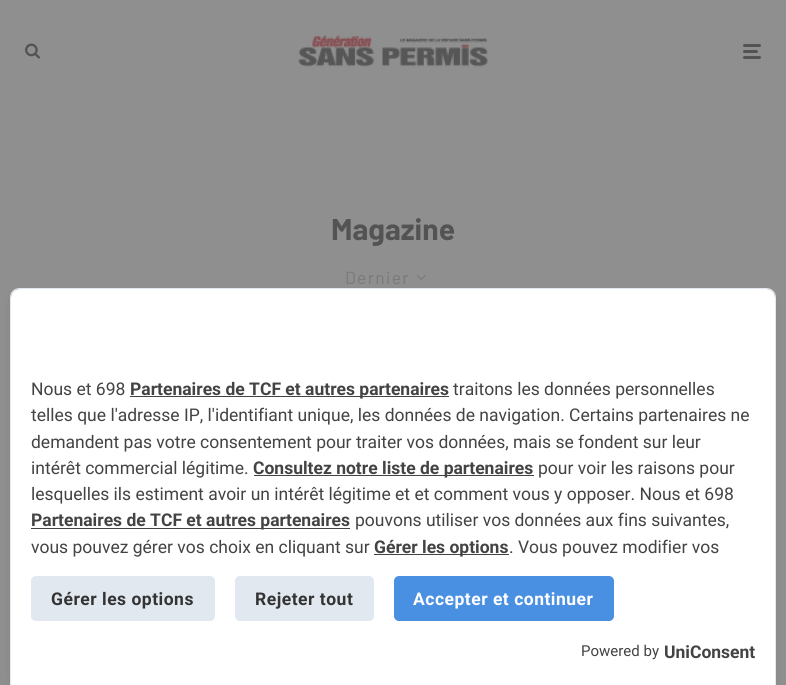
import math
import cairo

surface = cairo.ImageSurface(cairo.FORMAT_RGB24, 786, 685)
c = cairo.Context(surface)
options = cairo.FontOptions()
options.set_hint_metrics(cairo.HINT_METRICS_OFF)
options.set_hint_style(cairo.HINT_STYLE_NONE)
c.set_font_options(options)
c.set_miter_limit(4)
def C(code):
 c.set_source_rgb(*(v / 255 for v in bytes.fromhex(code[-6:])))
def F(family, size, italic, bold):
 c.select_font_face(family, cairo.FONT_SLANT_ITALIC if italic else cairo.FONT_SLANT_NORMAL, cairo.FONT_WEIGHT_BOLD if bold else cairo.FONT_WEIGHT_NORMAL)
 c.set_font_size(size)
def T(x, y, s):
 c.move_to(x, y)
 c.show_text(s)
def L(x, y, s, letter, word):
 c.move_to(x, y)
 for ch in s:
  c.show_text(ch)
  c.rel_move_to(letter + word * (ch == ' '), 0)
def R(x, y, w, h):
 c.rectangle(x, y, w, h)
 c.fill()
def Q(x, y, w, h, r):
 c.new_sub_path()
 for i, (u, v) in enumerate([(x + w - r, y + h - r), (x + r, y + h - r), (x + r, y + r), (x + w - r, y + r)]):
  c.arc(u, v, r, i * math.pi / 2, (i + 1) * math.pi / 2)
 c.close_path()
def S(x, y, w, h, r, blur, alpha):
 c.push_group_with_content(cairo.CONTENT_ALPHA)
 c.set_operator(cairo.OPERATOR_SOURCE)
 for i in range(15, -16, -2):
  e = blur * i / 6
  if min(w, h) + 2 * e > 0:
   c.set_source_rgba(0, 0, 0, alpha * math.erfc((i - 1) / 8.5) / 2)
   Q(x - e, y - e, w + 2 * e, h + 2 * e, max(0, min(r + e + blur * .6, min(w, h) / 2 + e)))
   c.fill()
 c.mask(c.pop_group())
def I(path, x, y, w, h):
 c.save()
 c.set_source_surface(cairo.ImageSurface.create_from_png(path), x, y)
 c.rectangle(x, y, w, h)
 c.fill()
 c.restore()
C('8f8f8f')
c.paint()
I('1.png',25,43,16,16)
I('2.png',298,35,190,32)
C('535353')
Q(743,50,15,3,1.5)
c.fill()
Q(743,44,18,3,1.5)
c.fill()
Q(743,56,18,3,1.5)
c.fill()
F('Barlow',30,0,1)
T(331,240,'Magazine')
F('Barlow',17.5,0,0)
C('797979')
L(345,284,'Dernier',1.25,0)
I('3.png',417,275,9,5)
C('000000')
S(11,294,764,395,9,4,.1)
C('ffffff')
c.new_path()
c.move_to(20,289)
c.line_to(766,289)
c.curve_to(771,289,775,293,775,298)
c.line_to(775,685)
c.line_to(11,685)
c.line_to(11,298)
c.curve_to(11,293,15,289,20,289)
c.close_path()
c.fill()
C('e2e8f0')
c.set_fill_rule(cairo.FILL_RULE_EVEN_ODD)
c.new_path()
c.move_to(20,288)
c.line_to(766,288)
c.curve_to(772,288,776,292,776,298)
c.line_to(776,685)
c.line_to(10,685)
c.line_to(10,298)
c.curve_to(10,292,14,288,20,288)
c.close_path()
c.move_to(20,289)
c.line_to(766,289)
c.curve_to(771,289,775,293,775,298)
c.line_to(775,685)
c.line_to(11,685)
c.line_to(11,298)
c.curve_to(11,293,15,289,20,289)
c.close_path()
c.fill()
F('Roboto',17.5,0,0)
C('434343')
T(31,395,'Nous et 698')
R(130,396,319,1)
F('Roboto',17.5,0,1)
T(130,395,'Partenaires de TCF et autres partenaires')
F('Roboto',17.5,0,0)
T(453,395,'traitons les données personnelles')
T(31,421,'telles que l\'adresse IP, l\'identifiant unique, les données de navigation. Certains partenaires ne')
T(31,448,'demandent pas votre consentement pour traiter vos données, mais se fondent sur leur')
T(31,474,'intérêt commercial légitime.')
R(254,475,280,1)
F('Roboto',17.5,0,1)
T(253,474,'Consultez notre liste de partenaires')
F('Roboto',17.5,0,0)
T(538,474,'pour voir les raisons pour')
T(31,500,'lesquelles ils estiment avoir un intérêt légitime et et comment vous y opposer. Nous et 698')
R(31,528,319,1)
F('Roboto',17.5,0,1)
T(31,526,'Partenaires de TCF et autres partenaires')
F('Roboto',17.5,0,0)
T(355,526,'pouvons utiliser vos données aux fins suivantes,')
T(31,553,'vous pouvez gérer vos choix en cliquant sur')
R(374,554,135,1)
F('Roboto',17.5,0,1)
T(374,553,'Gérer les options')
F('Roboto',17.5,0,0)
T(509,553,'. Vous pouvez modifier vos')
C('e2e8f0')
Q(31,576,184,45,5)
c.fill()
F('Roboto',17.5,0,1)
C('333333')
L(51,605,'Gérer les options',.5,0)
C('e2e8f0')
Q(235,576,139,45,5)
c.fill()
C('333333')
L(255,605,'Rejeter tout',.5,0)
C('4a90e2')
Q(394,576,220,45,5)
c.fill()
C('ffffff')
L(413,605,'Accepter et continuer',.5,0)
F('Roboto',15,0,0)
C('434343')
T(581,656,'Powered by')
F('Roboto',17.5,0,1)
T(664,658,'UniConsent')
surface.write_to_png('o.png')
